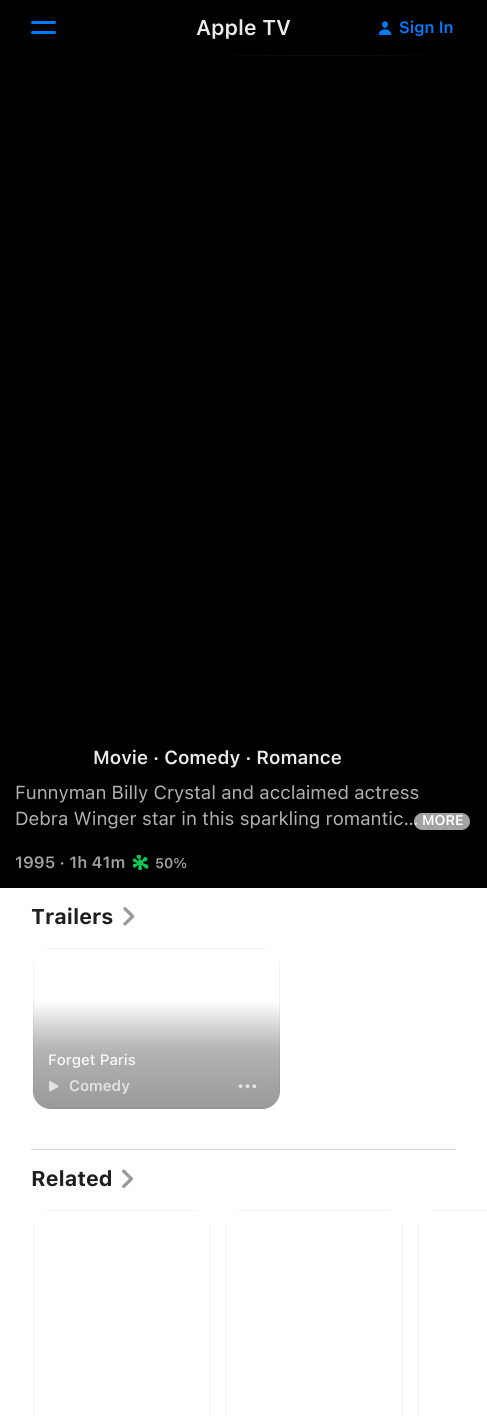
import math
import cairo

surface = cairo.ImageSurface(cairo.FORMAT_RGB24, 487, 1416)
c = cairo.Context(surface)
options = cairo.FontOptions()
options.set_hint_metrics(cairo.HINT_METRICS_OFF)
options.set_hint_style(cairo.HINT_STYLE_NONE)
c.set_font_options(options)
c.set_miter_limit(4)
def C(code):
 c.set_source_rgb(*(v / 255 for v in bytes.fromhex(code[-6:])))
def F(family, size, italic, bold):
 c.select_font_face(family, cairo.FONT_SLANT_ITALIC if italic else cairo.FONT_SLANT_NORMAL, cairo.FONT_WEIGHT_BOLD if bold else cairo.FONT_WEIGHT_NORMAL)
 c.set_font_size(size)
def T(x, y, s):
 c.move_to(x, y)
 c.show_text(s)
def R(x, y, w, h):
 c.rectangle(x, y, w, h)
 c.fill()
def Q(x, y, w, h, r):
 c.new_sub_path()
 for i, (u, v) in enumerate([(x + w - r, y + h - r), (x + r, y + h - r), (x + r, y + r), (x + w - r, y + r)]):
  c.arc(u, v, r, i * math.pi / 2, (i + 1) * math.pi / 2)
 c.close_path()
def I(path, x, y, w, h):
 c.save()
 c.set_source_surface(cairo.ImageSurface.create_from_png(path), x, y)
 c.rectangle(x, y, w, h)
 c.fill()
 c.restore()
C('ffffff')
c.paint()
C('000000')
R(0,0,487,55)
C('007aff')
Q(31,21,25,3,1.5)
c.fill()
Q(31,31,25,3,1.5)
c.fill()
F('SF SemiBold',21.25,0,0)
C('ebebeb')
T(196,35,'Apple TV')
I('1.png',379,21,12,14)
F('SF SemiBold',16.25,0,0)
C('007aff')
T(399,33,'Sign In')
C('000000')
R(201,56,249,123)
c.save()
c.rectangle(0,55,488,833)
c.clip()
c.rectangle(.5,55.5,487,865)
C('0d0d0d')
c.set_line_width(1)
c.stroke()
c.restore()
gradient = cairo.RadialGradient(325,55,0,325,55,125)
gradient.add_color_stop_rgba(0,0,0,0,0)
gradient.add_color_stop_rgba(.19,0,0,0,.04)
gradient.add_color_stop_rgba(.36,0,0,0,.15)
gradient.add_color_stop_rgba(.51,0,0,0,.3)
gradient.add_color_stop_rgba(.53,0,0,0,.33)
gradient.add_color_stop_rgba(.65,0,0,0,.49)
gradient.add_color_stop_rgba(.77,0,0,0,.67)
gradient.add_color_stop_rgba(.89,0,0,0,.85)
gradient.add_color_stop_rgba(1,0,0,0,1)
c.set_source(gradient)
R(0,55,487,833)
F('SF SemiBold',18.75,0,0)
C('ebebeb')
T(93,764,'Movie · Comedy · Romance')
F('SF',18.75,0,0)
C('b3b3b3')
T(15,799,'Funnyman Billy Crystal and acclaimed actress')
T(15,825,'Debra Winger star in this sparkling romantic…')
c.set_source_rgba(1,1,1,0.64)
Q(414,813,56,17,8.5)
c.fill()
F('SF SemiBold',14,0,0)
C('ffffff')
T(422,825,'MORE')
F('SF SemiBold',16.25,0,0)
C('a3a3a3')
T(15,868,'1995 · 1h 41m')
I('2.png',133,855,16,15)
F('SF SemiBold',14,0,0)
T(155,868,'50%')
F('SF',21.25,0,1)
C('1f1f1f')
T(31,924,'Trailers')
I('3.png',123,907,12,19)
C('f2f2f2')
c.set_fill_rule(cairo.FILL_RULE_EVEN_ODD)
c.new_path()
c.move_to(33,964)
c.line_to(33,1093)
c.line_to(34,1099)
c.line_to(34,958)
c.close_path()
c.move_to(49,948)
c.line_to(43,949)
c.line_to(270,949)
c.line_to(264,948)
c.close_path()
c.move_to(280,964)
c.line_to(279,958)
c.line_to(279,1099)
c.line_to(280,1093)
c.close_path()
c.move_to(264,1109)
c.line_to(270,1108)
c.line_to(43,1108)
c.line_to(49,1109)
c.close_path()
c.fill()
gradient = cairo.LinearGradient(156,1001,156,1109)
gradient.add_color_stop_rgba(0,0,0,0,0)
gradient.add_color_stop_rgba(.19,0,0,0,.13)
gradient.add_color_stop_rgba(.31,0,0,0,.21)
gradient.add_color_stop_rgba(.47,0,0,0,.3)
gradient.add_color_stop_rgba(1,0,0,0,.4)
c.set_source(gradient)
c.new_path()
c.move_to(33,1001)
c.line_to(280,1001)
c.line_to(280,1091)
c.curve_to(280,1101,272,1109,262,1109)
c.line_to(51,1109)
c.curve_to(41,1109,33,1101,33,1091)
c.close_path()
c.fill()
F('SF Medium',15,0,0)
C('f9f9f9')
T(48,1065,'Forget Paris')
I('4.png',49,1081,10,11)
F('SF SemiBold',15,0,0)
C('e3e3e3')
T(69,1091,'Comedy')
I('5.png',238,1084,19,5)
C('d9d9d9')
R(31,1149,425,1)
F('SF',21.25,0,1)
C('1f1f1f')
T(31,1186,'Related')
I('6.png',122,1169,11,19)
C('f2f2f2')
c.new_path()
c.move_to(33,1226)
c.line_to(33,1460)
c.line_to(34,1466)
c.line_to(34,1220)
c.close_path()
c.move_to(49,1210)
c.line_to(43,1211)
c.line_to(200,1211)
c.line_to(194,1210)
c.close_path()
c.move_to(210,1226)
c.line_to(209,1220)
c.line_to(209,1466)
c.line_to(210,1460)
c.close_path()
c.move_to(194,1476)
c.line_to(200,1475)
c.line_to(43,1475)
c.line_to(49,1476)
c.close_path()
c.fill()
c.new_path()
c.move_to(225,1226)
c.line_to(225,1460)
c.line_to(226,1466)
c.line_to(226,1220)
c.close_path()
c.move_to(241,1210)
c.line_to(235,1211)
c.line_to(393,1211)
c.line_to(387,1210)
c.close_path()
c.move_to(403,1226)
c.line_to(402,1220)
c.line_to(402,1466)
c.line_to(403,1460)
c.close_path()
c.move_to(387,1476)
c.line_to(393,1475)
c.line_to(235,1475)
c.line_to(241,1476)
c.close_path()
c.fill()
c.new_path()
c.move_to(418,1226)
c.line_to(418,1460)
c.line_to(419,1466)
c.line_to(419,1220)
c.close_path()
c.move_to(434,1210)
c.line_to(428,1211)
c.line_to(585,1211)
c.line_to(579,1210)
c.close_path()
c.move_to(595,1226)
c.line_to(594,1220)
c.line_to(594,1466)
c.line_to(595,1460)
c.close_path()
c.move_to(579,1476)
c.line_to(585,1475)
c.line_to(428,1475)
c.line_to(434,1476)
c.close_path()
c.fill()
surface.write_to_png('o.png')
